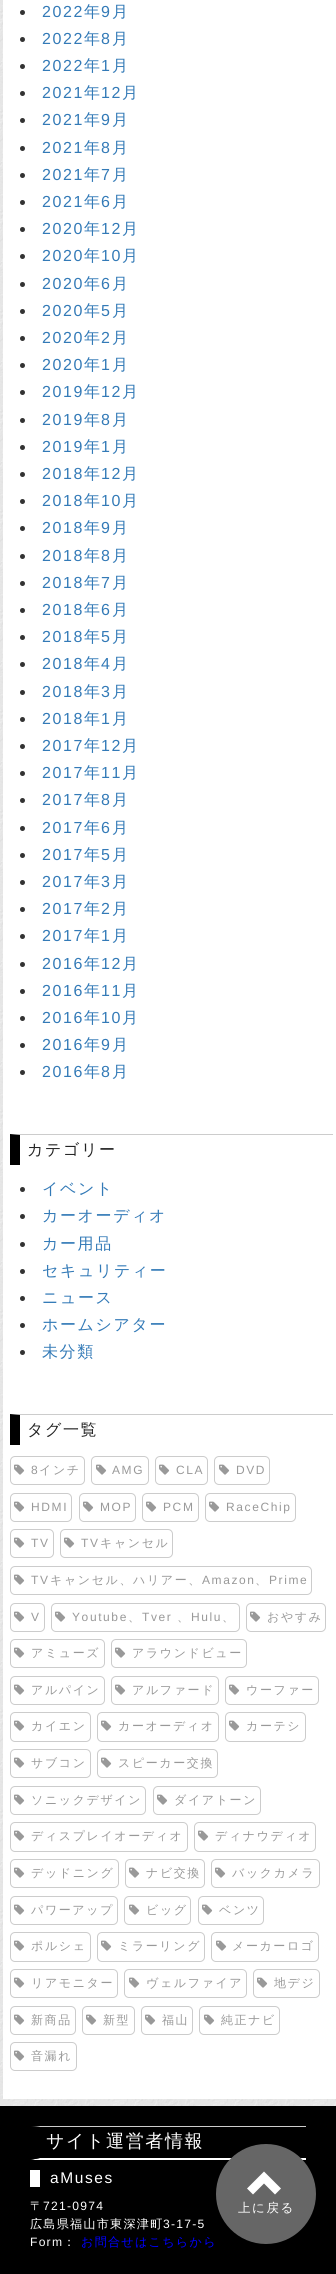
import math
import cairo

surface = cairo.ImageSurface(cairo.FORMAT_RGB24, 336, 2274)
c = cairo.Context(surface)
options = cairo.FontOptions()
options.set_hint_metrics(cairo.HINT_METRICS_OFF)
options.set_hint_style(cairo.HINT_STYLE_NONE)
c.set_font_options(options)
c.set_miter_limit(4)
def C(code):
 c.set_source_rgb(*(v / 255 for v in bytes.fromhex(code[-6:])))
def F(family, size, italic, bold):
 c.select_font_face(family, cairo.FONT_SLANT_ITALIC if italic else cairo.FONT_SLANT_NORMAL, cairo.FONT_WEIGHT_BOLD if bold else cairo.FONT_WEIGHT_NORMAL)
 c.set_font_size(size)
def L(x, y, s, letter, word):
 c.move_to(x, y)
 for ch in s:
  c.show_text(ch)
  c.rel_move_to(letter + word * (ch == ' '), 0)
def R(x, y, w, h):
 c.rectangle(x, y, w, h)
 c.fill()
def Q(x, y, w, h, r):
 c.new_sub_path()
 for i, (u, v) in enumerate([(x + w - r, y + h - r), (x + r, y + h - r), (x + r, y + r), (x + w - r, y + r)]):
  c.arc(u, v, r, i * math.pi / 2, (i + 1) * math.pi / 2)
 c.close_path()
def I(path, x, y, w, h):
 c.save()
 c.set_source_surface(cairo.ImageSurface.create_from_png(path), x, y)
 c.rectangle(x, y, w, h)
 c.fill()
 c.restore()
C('ffffff')
c.paint()
I('1.png',0,0,336,2106)
C('ffffff')
R(3,0,333,2099)
C('333333')
c.arc(22.5,12.5,2.5,0,2 * math.pi)
c.fill()
F('Liberation Sans',16,0,0)
C('337ab7')
L(42,17,'2022',1.6,0)
F('WenQuanYi Zen Hei Medium',16,0,0)
L(84,17,'年',1.6,0)
F('Liberation Sans',16,0,0)
L(101,17,'9',1.6,0)
F('WenQuanYi Zen Hei Medium',16,0,0)
L(112,17,'月',1.6,0)
C('333333')
c.new_path()
c.arc(22.5,39.5,2.5,0,2 * math.pi)
c.fill()
F('Liberation Sans',16,0,0)
C('337ab7')
L(42,44,'2022',1.6,0)
F('WenQuanYi Zen Hei Medium',16,0,0)
L(84,44,'年',1.6,0)
F('Liberation Sans',16,0,0)
L(101,44,'8',1.6,0)
F('WenQuanYi Zen Hei Medium',16,0,0)
L(112,44,'月',1.6,0)
C('333333')
c.new_path()
c.arc(22.5,66.5,2.5,0,2 * math.pi)
c.fill()
F('Liberation Sans',16,0,0)
C('337ab7')
L(42,71,'2022',1.6,0)
F('WenQuanYi Zen Hei Medium',16,0,0)
L(84,71,'年',1.6,0)
F('Liberation Sans',16,0,0)
L(101,71,'1',1.6,0)
F('WenQuanYi Zen Hei Medium',16,0,0)
L(112,71,'月',1.6,0)
C('333333')
c.new_path()
c.arc(22.5,93.5,2.5,0,2 * math.pi)
c.fill()
F('Liberation Sans',16,0,0)
C('337ab7')
L(42,98,'2021',1.6,0)
F('WenQuanYi Zen Hei Medium',16,0,0)
L(84,98,'年',1.6,0)
F('Liberation Sans',16,0,0)
L(101,98,'12',1.6,0)
F('WenQuanYi Zen Hei Medium',16,0,0)
L(122,98,'月',1.6,0)
C('333333')
c.new_path()
c.arc(22.5,120.5,2.5,0,2 * math.pi)
c.fill()
F('Liberation Sans',16,0,0)
C('337ab7')
L(42,125,'2021',1.6,0)
F('WenQuanYi Zen Hei Medium',16,0,0)
L(84,125,'年',1.6,0)
F('Liberation Sans',16,0,0)
L(101,125,'9',1.6,0)
F('WenQuanYi Zen Hei Medium',16,0,0)
L(112,125,'月',1.6,0)
C('333333')
c.new_path()
c.arc(22.5,148.5,2.5,0,2 * math.pi)
c.fill()
F('Liberation Sans',16,0,0)
C('337ab7')
L(42,153,'2021',1.6,0)
F('WenQuanYi Zen Hei Medium',16,0,0)
L(84,153,'年',1.6,0)
F('Liberation Sans',16,0,0)
L(101,153,'8',1.6,0)
F('WenQuanYi Zen Hei Medium',16,0,0)
L(112,153,'月',1.6,0)
C('333333')
c.new_path()
c.arc(22.5,175.5,2.5,0,2 * math.pi)
c.fill()
F('Liberation Sans',16,0,0)
C('337ab7')
L(42,180,'2021',1.6,0)
F('WenQuanYi Zen Hei Medium',16,0,0)
L(84,180,'年',1.6,0)
F('Liberation Sans',16,0,0)
L(101,180,'7',1.6,0)
F('WenQuanYi Zen Hei Medium',16,0,0)
L(112,180,'月',1.6,0)
C('333333')
c.new_path()
c.arc(22.5,202.5,2.5,0,2 * math.pi)
c.fill()
F('Liberation Sans',16,0,0)
C('337ab7')
L(42,207,'2021',1.6,0)
F('WenQuanYi Zen Hei Medium',16,0,0)
L(84,207,'年',1.6,0)
F('Liberation Sans',16,0,0)
L(101,207,'6',1.6,0)
F('WenQuanYi Zen Hei Medium',16,0,0)
L(112,207,'月',1.6,0)
C('333333')
c.new_path()
c.arc(22.5,229.5,2.5,0,2 * math.pi)
c.fill()
F('Liberation Sans',16,0,0)
C('337ab7')
L(42,234,'2020',1.6,0)
F('WenQuanYi Zen Hei Medium',16,0,0)
L(84,234,'年',1.6,0)
F('Liberation Sans',16,0,0)
L(101,234,'12',1.6,0)
F('WenQuanYi Zen Hei Medium',16,0,0)
L(122,234,'月',1.6,0)
C('333333')
c.new_path()
c.arc(22.5,256.5,2.5,0,2 * math.pi)
c.fill()
F('Liberation Sans',16,0,0)
C('337ab7')
L(42,261,'2020',1.6,0)
F('WenQuanYi Zen Hei Medium',16,0,0)
L(84,261,'年',1.6,0)
F('Liberation Sans',16,0,0)
L(101,261,'10',1.6,0)
F('WenQuanYi Zen Hei Medium',16,0,0)
L(122,261,'月',1.6,0)
C('333333')
c.new_path()
c.arc(22.5,284.5,2.5,0,2 * math.pi)
c.fill()
F('Liberation Sans',16,0,0)
C('337ab7')
L(42,289,'2020',1.6,0)
F('WenQuanYi Zen Hei Medium',16,0,0)
L(84,289,'年',1.6,0)
F('Liberation Sans',16,0,0)
L(101,289,'6',1.6,0)
F('WenQuanYi Zen Hei Medium',16,0,0)
L(112,289,'月',1.6,0)
C('333333')
c.new_path()
c.arc(22.5,311.5,2.5,0,2 * math.pi)
c.fill()
F('Liberation Sans',16,0,0)
C('337ab7')
L(42,316,'2020',1.6,0)
F('WenQuanYi Zen Hei Medium',16,0,0)
L(84,316,'年',1.6,0)
F('Liberation Sans',16,0,0)
L(101,316,'5',1.6,0)
F('WenQuanYi Zen Hei Medium',16,0,0)
L(112,316,'月',1.6,0)
C('333333')
c.new_path()
c.arc(22.5,338.5,2.5,0,2 * math.pi)
c.fill()
F('Liberation Sans',16,0,0)
C('337ab7')
L(42,343,'2020',1.6,0)
F('WenQuanYi Zen Hei Medium',16,0,0)
L(84,343,'年',1.6,0)
F('Liberation Sans',16,0,0)
L(101,343,'2',1.6,0)
F('WenQuanYi Zen Hei Medium',16,0,0)
L(112,343,'月',1.6,0)
C('333333')
c.new_path()
c.arc(22.5,365.5,2.5,0,2 * math.pi)
c.fill()
F('Liberation Sans',16,0,0)
C('337ab7')
L(42,370,'2020',1.6,0)
F('WenQuanYi Zen Hei Medium',16,0,0)
L(84,370,'年',1.6,0)
F('Liberation Sans',16,0,0)
L(101,370,'1',1.6,0)
F('WenQuanYi Zen Hei Medium',16,0,0)
L(112,370,'月',1.6,0)
C('333333')
c.new_path()
c.arc(22.5,392.5,2.5,0,2 * math.pi)
c.fill()
F('Liberation Sans',16,0,0)
C('337ab7')
L(42,397,'2019',1.6,0)
F('WenQuanYi Zen Hei Medium',16,0,0)
L(84,397,'年',1.6,0)
F('Liberation Sans',16,0,0)
L(101,397,'12',1.6,0)
F('WenQuanYi Zen Hei Medium',16,0,0)
L(122,397,'月',1.6,0)
C('333333')
c.new_path()
c.arc(22.5,420.5,2.5,0,2 * math.pi)
c.fill()
F('Liberation Sans',16,0,0)
C('337ab7')
L(42,425,'2019',1.6,0)
F('WenQuanYi Zen Hei Medium',16,0,0)
L(84,425,'年',1.6,0)
F('Liberation Sans',16,0,0)
L(101,425,'8',1.6,0)
F('WenQuanYi Zen Hei Medium',16,0,0)
L(112,425,'月',1.6,0)
C('333333')
c.new_path()
c.arc(22.5,447.5,2.5,0,2 * math.pi)
c.fill()
F('Liberation Sans',16,0,0)
C('337ab7')
L(42,452,'2019',1.6,0)
F('WenQuanYi Zen Hei Medium',16,0,0)
L(84,452,'年',1.6,0)
F('Liberation Sans',16,0,0)
L(101,452,'1',1.6,0)
F('WenQuanYi Zen Hei Medium',16,0,0)
L(112,452,'月',1.6,0)
C('333333')
c.new_path()
c.arc(22.5,474.5,2.5,0,2 * math.pi)
c.fill()
F('Liberation Sans',16,0,0)
C('337ab7')
L(42,479,'2018',1.6,0)
F('WenQuanYi Zen Hei Medium',16,0,0)
L(84,479,'年',1.6,0)
F('Liberation Sans',16,0,0)
L(101,479,'12',1.6,0)
F('WenQuanYi Zen Hei Medium',16,0,0)
L(122,479,'月',1.6,0)
C('333333')
c.new_path()
c.arc(22.5,501.5,2.5,0,2 * math.pi)
c.fill()
F('Liberation Sans',16,0,0)
C('337ab7')
L(42,506,'2018',1.6,0)
F('WenQuanYi Zen Hei Medium',16,0,0)
L(84,506,'年',1.6,0)
F('Liberation Sans',16,0,0)
L(101,506,'10',1.6,0)
F('WenQuanYi Zen Hei Medium',16,0,0)
L(122,506,'月',1.6,0)
C('333333')
c.new_path()
c.arc(22.5,528.5,2.5,0,2 * math.pi)
c.fill()
F('Liberation Sans',16,0,0)
C('337ab7')
L(42,533,'2018',1.6,0)
F('WenQuanYi Zen Hei Medium',16,0,0)
L(84,533,'年',1.6,0)
F('Liberation Sans',16,0,0)
L(101,533,'9',1.6,0)
F('WenQuanYi Zen Hei Medium',16,0,0)
L(112,533,'月',1.6,0)
C('333333')
c.new_path()
c.arc(22.5,556.5,2.5,0,2 * math.pi)
c.fill()
F('Liberation Sans',16,0,0)
C('337ab7')
L(42,561,'2018',1.6,0)
F('WenQuanYi Zen Hei Medium',16,0,0)
L(84,561,'年',1.6,0)
F('Liberation Sans',16,0,0)
L(101,561,'8',1.6,0)
F('WenQuanYi Zen Hei Medium',16,0,0)
L(112,561,'月',1.6,0)
C('333333')
c.new_path()
c.arc(22.5,583.5,2.5,0,2 * math.pi)
c.fill()
F('Liberation Sans',16,0,0)
C('337ab7')
L(42,588,'2018',1.6,0)
F('WenQuanYi Zen Hei Medium',16,0,0)
L(84,588,'年',1.6,0)
F('Liberation Sans',16,0,0)
L(101,588,'7',1.6,0)
F('WenQuanYi Zen Hei Medium',16,0,0)
L(112,588,'月',1.6,0)
C('333333')
c.new_path()
c.arc(22.5,610.5,2.5,0,2 * math.pi)
c.fill()
F('Liberation Sans',16,0,0)
C('337ab7')
L(42,615,'2018',1.6,0)
F('WenQuanYi Zen Hei Medium',16,0,0)
L(84,615,'年',1.6,0)
F('Liberation Sans',16,0,0)
L(101,615,'6',1.6,0)
F('WenQuanYi Zen Hei Medium',16,0,0)
L(112,615,'月',1.6,0)
C('333333')
c.new_path()
c.arc(22.5,637.5,2.5,0,2 * math.pi)
c.fill()
F('Liberation Sans',16,0,0)
C('337ab7')
L(42,642,'2018',1.6,0)
F('WenQuanYi Zen Hei Medium',16,0,0)
L(84,642,'年',1.6,0)
F('Liberation Sans',16,0,0)
L(101,642,'5',1.6,0)
F('WenQuanYi Zen Hei Medium',16,0,0)
L(112,642,'月',1.6,0)
C('333333')
c.new_path()
c.arc(22.5,664.5,2.5,0,2 * math.pi)
c.fill()
F('Liberation Sans',16,0,0)
C('337ab7')
L(42,669,'2018',1.6,0)
F('WenQuanYi Zen Hei Medium',16,0,0)
L(84,669,'年',1.6,0)
F('Liberation Sans',16,0,0)
L(101,669,'4',1.6,0)
F('WenQuanYi Zen Hei Medium',16,0,0)
L(112,669,'月',1.6,0)
C('333333')
c.new_path()
c.arc(22.5,692.5,2.5,0,2 * math.pi)
c.fill()
F('Liberation Sans',16,0,0)
C('337ab7')
L(42,697,'2018',1.6,0)
F('WenQuanYi Zen Hei Medium',16,0,0)
L(84,697,'年',1.6,0)
F('Liberation Sans',16,0,0)
L(101,697,'3',1.6,0)
F('WenQuanYi Zen Hei Medium',16,0,0)
L(112,697,'月',1.6,0)
C('333333')
c.new_path()
c.arc(22.5,719.5,2.5,0,2 * math.pi)
c.fill()
F('Liberation Sans',16,0,0)
C('337ab7')
L(42,724,'2018',1.6,0)
F('WenQuanYi Zen Hei Medium',16,0,0)
L(84,724,'年',1.6,0)
F('Liberation Sans',16,0,0)
L(101,724,'1',1.6,0)
F('WenQuanYi Zen Hei Medium',16,0,0)
L(112,724,'月',1.6,0)
C('333333')
c.new_path()
c.arc(22.5,746.5,2.5,0,2 * math.pi)
c.fill()
F('Liberation Sans',16,0,0)
C('337ab7')
L(42,751,'2017',1.6,0)
F('WenQuanYi Zen Hei Medium',16,0,0)
L(84,751,'年',1.6,0)
F('Liberation Sans',16,0,0)
L(101,751,'12',1.6,0)
F('WenQuanYi Zen Hei Medium',16,0,0)
L(122,751,'月',1.6,0)
C('333333')
c.new_path()
c.arc(22.5,773.5,2.5,0,2 * math.pi)
c.fill()
F('Liberation Sans',16,0,0)
C('337ab7')
L(42,778,'2017',1.6,0)
F('WenQuanYi Zen Hei Medium',16,0,0)
L(84,778,'年',1.6,0)
F('Liberation Sans',16,0,0)
L(101,778,'11',1.6,0)
F('WenQuanYi Zen Hei Medium',16,0,0)
L(122,778,'月',1.6,0)
C('333333')
c.new_path()
c.arc(22.5,800.5,2.5,0,2 * math.pi)
c.fill()
F('Liberation Sans',16,0,0)
C('337ab7')
L(42,805,'2017',1.6,0)
F('WenQuanYi Zen Hei Medium',16,0,0)
L(84,805,'年',1.6,0)
F('Liberation Sans',16,0,0)
L(101,805,'8',1.6,0)
F('WenQuanYi Zen Hei Medium',16,0,0)
L(112,805,'月',1.6,0)
C('333333')
c.new_path()
c.arc(22.5,828.5,2.5,0,2 * math.pi)
c.fill()
F('Liberation Sans',16,0,0)
C('337ab7')
L(42,833,'2017',1.6,0)
F('WenQuanYi Zen Hei Medium',16,0,0)
L(84,833,'年',1.6,0)
F('Liberation Sans',16,0,0)
L(101,833,'6',1.6,0)
F('WenQuanYi Zen Hei Medium',16,0,0)
L(112,833,'月',1.6,0)
C('333333')
c.new_path()
c.arc(22.5,855.5,2.5,0,2 * math.pi)
c.fill()
F('Liberation Sans',16,0,0)
C('337ab7')
L(42,860,'2017',1.6,0)
F('WenQuanYi Zen Hei Medium',16,0,0)
L(84,860,'年',1.6,0)
F('Liberation Sans',16,0,0)
L(101,860,'5',1.6,0)
F('WenQuanYi Zen Hei Medium',16,0,0)
L(112,860,'月',1.6,0)
C('333333')
c.new_path()
c.arc(22.5,882.5,2.5,0,2 * math.pi)
c.fill()
F('Liberation Sans',16,0,0)
C('337ab7')
L(42,887,'2017',1.6,0)
F('WenQuanYi Zen Hei Medium',16,0,0)
L(84,887,'年',1.6,0)
F('Liberation Sans',16,0,0)
L(101,887,'3',1.6,0)
F('WenQuanYi Zen Hei Medium',16,0,0)
L(112,887,'月',1.6,0)
C('333333')
c.new_path()
c.arc(22.5,909.5,2.5,0,2 * math.pi)
c.fill()
F('Liberation Sans',16,0,0)
C('337ab7')
L(42,914,'2017',1.6,0)
F('WenQuanYi Zen Hei Medium',16,0,0)
L(84,914,'年',1.6,0)
F('Liberation Sans',16,0,0)
L(101,914,'2',1.6,0)
F('WenQuanYi Zen Hei Medium',16,0,0)
L(112,914,'月',1.6,0)
C('333333')
c.new_path()
c.arc(22.5,936.5,2.5,0,2 * math.pi)
c.fill()
F('Liberation Sans',16,0,0)
C('337ab7')
L(42,941,'2017',1.6,0)
F('WenQuanYi Zen Hei Medium',16,0,0)
L(84,941,'年',1.6,0)
F('Liberation Sans',16,0,0)
L(101,941,'1',1.6,0)
F('WenQuanYi Zen Hei Medium',16,0,0)
L(112,941,'月',1.6,0)
C('333333')
c.new_path()
c.arc(22.5,964.5,2.5,0,2 * math.pi)
c.fill()
F('Liberation Sans',16,0,0)
C('337ab7')
L(42,969,'2016',1.6,0)
F('WenQuanYi Zen Hei Medium',16,0,0)
L(84,969,'年',1.6,0)
F('Liberation Sans',16,0,0)
L(101,969,'12',1.6,0)
F('WenQuanYi Zen Hei Medium',16,0,0)
L(122,969,'月',1.6,0)
C('333333')
c.new_path()
c.arc(22.5,991.5,2.5,0,2 * math.pi)
c.fill()
F('Liberation Sans',16,0,0)
C('337ab7')
L(42,996,'2016',1.6,0)
F('WenQuanYi Zen Hei Medium',16,0,0)
L(84,996,'年',1.6,0)
F('Liberation Sans',16,0,0)
L(101,996,'11',1.6,0)
F('WenQuanYi Zen Hei Medium',16,0,0)
L(122,996,'月',1.6,0)
C('333333')
c.new_path()
c.arc(22.5,1018.5,2.5,0,2 * math.pi)
c.fill()
F('Liberation Sans',16,0,0)
C('337ab7')
L(42,1023,'2016',1.6,0)
F('WenQuanYi Zen Hei Medium',16,0,0)
L(84,1023,'年',1.6,0)
F('Liberation Sans',16,0,0)
L(101,1023,'10',1.6,0)
F('WenQuanYi Zen Hei Medium',16,0,0)
L(122,1023,'月',1.6,0)
C('333333')
c.new_path()
c.arc(22.5,1045.5,2.5,0,2 * math.pi)
c.fill()
F('Liberation Sans',16,0,0)
C('337ab7')
L(42,1050,'2016',1.6,0)
F('WenQuanYi Zen Hei Medium',16,0,0)
L(84,1050,'年',1.6,0)
F('Liberation Sans',16,0,0)
L(101,1050,'9',1.6,0)
F('WenQuanYi Zen Hei Medium',16,0,0)
L(112,1050,'月',1.6,0)
C('333333')
c.new_path()
c.arc(22.5,1072.5,2.5,0,2 * math.pi)
c.fill()
F('Liberation Sans',16,0,0)
C('337ab7')
L(42,1077,'2016',1.6,0)
F('WenQuanYi Zen Hei Medium',16,0,0)
L(84,1077,'年',1.6,0)
F('Liberation Sans',16,0,0)
L(101,1077,'8',1.6,0)
F('WenQuanYi Zen Hei Medium',16,0,0)
L(112,1077,'月',1.6,0)
C('cccccc')
c.new_path()
c.move_to(10,1134)
c.line_to(333,1134)
c.line_to(333,1135)
c.line_to(20,1135)
c.close_path()
c.fill()
C('000000')
c.new_path()
c.move_to(10,1165)
c.line_to(10,1134)
c.line_to(20,1135)
c.line_to(20,1165)
c.close_path()
c.fill()
C('222222')
L(27,1155,'カテゴリー',1.6,0)
C('333333')
c.new_path()
c.arc(22.5,1189.5,2.5,0,2 * math.pi)
c.fill()
C('337ab7')
L(42,1194,'イベント',1.6,0)
C('333333')
c.new_path()
c.arc(22.5,1216.5,2.5,0,2 * math.pi)
c.fill()
C('337ab7')
L(42,1221,'カーオーディオ',1.6,0)
C('333333')
c.new_path()
c.arc(22.5,1244.5,2.5,0,2 * math.pi)
c.fill()
C('337ab7')
L(42,1249,'カー用品',1.6,0)
C('333333')
c.new_path()
c.arc(22.5,1271.5,2.5,0,2 * math.pi)
c.fill()
C('337ab7')
L(42,1276,'セキュリティー',1.6,0)
C('333333')
c.new_path()
c.arc(22.5,1298.5,2.5,0,2 * math.pi)
c.fill()
C('337ab7')
L(42,1303,'ニュース',1.6,0)
C('333333')
c.new_path()
c.arc(22.5,1325.5,2.5,0,2 * math.pi)
c.fill()
C('337ab7')
L(42,1330,'ホームシアター',1.6,0)
C('333333')
c.new_path()
c.arc(22.5,1352.5,2.5,0,2 * math.pi)
c.fill()
C('337ab7')
L(42,1357,'未分類',1.6,0)
C('cccccc')
c.new_path()
c.move_to(10,1414)
c.line_to(333,1414)
c.line_to(333,1415)
c.line_to(20,1415)
c.close_path()
c.fill()
C('000000')
c.new_path()
c.move_to(10,1445)
c.line_to(10,1414)
c.line_to(20,1415)
c.line_to(20,1445)
c.close_path()
c.fill()
C('222222')
L(27,1435,'タグ一覧',1.6,0)
Q(10.5,1456.5,74,28,4.5)
C('cccccc')
c.set_line_width(1)
c.stroke()
I('2.png',14,1464,11,11)
F('Liberation Sans',12,0,0)
C('999999')
L(31,1474,'8',1.6,0)
F('WenQuanYi Zen Hei Medium',12,0,0)
L(39,1474,'インチ',1.6,0)
Q(91.5,1456.5,57,28,4.5)
C('cccccc')
c.stroke()
I('2.png',96,1464,11,11)
F('Liberation Sans',12,0,0)
C('999999')
L(112,1474,'AMG',1.6,0)
Q(155.5,1456.5,52,28,4.5)
C('cccccc')
c.stroke()
I('2.png',159,1464,11,11)
C('999999')
L(176,1474,'CLA',1.6,0)
Q(214.5,1456.5,55,28,4.5)
C('cccccc')
c.stroke()
I('2.png',219,1464,11,11)
C('999999')
L(236,1474,'DVD',1.6,0)
Q(10.5,1493.5,61,28,4.5)
C('cccccc')
c.stroke()
I('2.png',14,1501,11,11)
C('999999')
L(31,1511,'HDMI',1.6,0)
Q(79.5,1493.5,56,28,4.5)
C('cccccc')
c.stroke()
I('2.png',83,1501,11,11)
C('999999')
L(100,1511,'MOP',1.6,0)
Q(142.5,1493.5,56,28,4.5)
C('cccccc')
c.stroke()
I('2.png',146,1501,11,11)
C('999999')
L(163,1511,'PCM',1.6,0)
Q(205.5,1493.5,90,28,4.5)
C('cccccc')
c.stroke()
I('2.png',209,1501,11,11)
C('999999')
L(226,1511,'RaceChip',1.6,0)
Q(10.5,1529.5,43,28,4.5)
C('cccccc')
c.stroke()
I('2.png',14,1537,11,11)
C('999999')
L(31,1547,'TV',1.6,0)
Q(60.5,1529.5,112,28,4.5)
C('cccccc')
c.stroke()
I('2.png',64,1537,11,11)
C('999999')
L(81,1547,'TV',1.6,0)
F('WenQuanYi Zen Hei Medium',12,0,0)
L(100,1547,'キャンセル',1.6,0)
Q(10.5,1566.5,301,28,4.5)
C('cccccc')
c.stroke()
I('2.png',14,1574,11,11)
F('Liberation Sans',12,0,0)
C('999999')
L(31,1584,'TV',1.6,0)
F('WenQuanYi Zen Hei Medium',12,0,0)
L(50,1584,'キャンセル、ハリアー、',1.6,0)
F('Liberation Sans',12,0,0)
L(202,1584,'Amazon',1.6,0)
F('WenQuanYi Zen Hei Medium',12,0,0)
L(255,1584,'、',1.6,0)
F('Liberation Sans',12,0,0)
L(269,1584,'Prime',1.6,0)
Q(10.5,1603.5,34,28,4.5)
C('cccccc')
c.stroke()
I('2.png',14,1611,11,11)
C('999999')
L(31,1621,'V',1.6,0)
Q(51.5,1603.5,188,28,4.5)
C('cccccc')
c.stroke()
I('2.png',55,1611,11,11)
C('999999')
L(72,1621,'Youtube',1.6,0)
F('WenQuanYi Zen Hei Medium',12,0,0)
L(128,1621,'、',1.6,0)
F('Liberation Sans',12,0,0)
L(142,1621,'Tver',1.6,0)
F('WenQuanYi Zen Hei Medium',12,0,0)
L(177,1621,'、',1.6,0)
F('Liberation Sans',12,0,0)
L(191,1621,'Hulu',1.6,0)
F('WenQuanYi Zen Hei Medium',12,0,0)
L(222,1621,'、',1.6,0)
Q(246.5,1603.5,79,28,4.5)
C('cccccc')
c.stroke()
I('2.png',250,1611,11,11)
C('999999')
L(267,1621,'おやすみ',1.6,0)
Q(10.5,1639.5,94,28,4.5)
C('cccccc')
c.stroke()
I('2.png',14,1647,11,11)
C('999999')
L(31,1657,'アミューズ',1.6,0)
Q(111.5,1639.5,135,28,4.5)
C('cccccc')
c.stroke()
I('2.png',115,1647,11,11)
C('999999')
L(132,1657,'アラウンドビュー',1.6,0)
Q(10.5,1676.5,94,28,4.5)
C('cccccc')
c.stroke()
I('2.png',14,1684,11,11)
C('999999')
L(31,1694,'アルパイン',1.6,0)
Q(111.5,1676.5,107,28,4.5)
C('cccccc')
c.stroke()
I('2.png',115,1684,11,11)
C('999999')
L(132,1694,'アルファード',1.6,0)
Q(225.5,1676.5,93,28,4.5)
C('cccccc')
c.stroke()
I('2.png',229,1684,11,11)
C('999999')
L(246,1694,'ウーファー',1.6,0)
Q(10.5,1712.5,80,29,4.5)
C('cccccc')
c.stroke()
I('2.png',14,1720,11,11)
C('999999')
L(31,1730,'カイエン',1.6,0)
Q(97.5,1712.5,121,29,4.5)
C('cccccc')
c.stroke()
I('2.png',101,1720,11,11)
C('999999')
L(118,1730,'カーオーディオ',1.6,0)
Q(225.5,1712.5,80,29,4.5)
C('cccccc')
c.stroke()
I('2.png',229,1720,11,11)
C('999999')
L(246,1730,'カーテシ',1.6,0)
Q(10.5,1749.5,80,28,4.5)
C('cccccc')
c.stroke()
I('2.png',14,1757,11,11)
C('999999')
L(31,1767,'サブコン',1.6,0)
Q(97.5,1749.5,120,28,4.5)
C('cccccc')
c.stroke()
I('2.png',101,1757,11,11)
C('999999')
L(118,1767,'スピーカー交換',1.6,0)
Q(10.5,1786.5,135,28,4.5)
C('cccccc')
c.stroke()
I('2.png',14,1794,11,11)
C('999999')
L(31,1804,'ソニックデザイン',1.6,0)
Q(153.5,1786.5,107,28,4.5)
C('cccccc')
c.stroke()
I('2.png',157,1794,11,11)
C('999999')
L(174,1804,'ダイアトーン',1.6,0)
Q(10.5,1822.5,177,29,4.5)
C('cccccc')
c.stroke()
I('2.png',14,1830,11,11)
C('999999')
L(31,1840,'ディスプレイオーディオ',1.6,0)
Q(194.5,1822.5,121,29,4.5)
C('cccccc')
c.stroke()
I('2.png',198,1830,11,11)
C('999999')
L(215,1840,'ディナウディオ',1.6,0)
Q(10.5,1859.5,108,28,4.5)
C('cccccc')
c.stroke()
I('2.png',14,1867,11,11)
C('999999')
L(31,1877,'デッドニング',1.6,0)
Q(125.5,1859.5,79,28,4.5)
C('cccccc')
c.stroke()
I('2.png',129,1867,11,11)
C('999999')
L(146,1877,'ナビ交換',1.6,0)
Q(211.5,1859.5,108,28,4.5)
C('cccccc')
c.stroke()
I('2.png',215,1867,11,11)
C('999999')
L(232,1877,'バックカメラ',1.6,0)
Q(10.5,1896.5,107,28,4.5)
C('cccccc')
c.stroke()
I('2.png',14,1904,11,11)
C('999999')
L(31,1914,'パワーアップ',1.6,0)
Q(124.5,1896.5,66,28,4.5)
C('cccccc')
c.stroke()
I('2.png',129,1904,11,11)
C('999999')
L(146,1914,'ビッグ',1.6,0)
Q(198.5,1896.5,65,28,4.5)
C('cccccc')
c.stroke()
I('2.png',202,1904,11,11)
C('999999')
L(219,1914,'ベンツ',1.6,0)
Q(10.5,1932.5,80,29,4.5)
C('cccccc')
c.stroke()
I('2.png',14,1940,11,11)
C('999999')
L(31,1950,'ポルシェ',1.6,0)
Q(97.5,1932.5,107,29,4.5)
C('cccccc')
c.stroke()
I('2.png',101,1940,11,11)
C('999999')
L(118,1950,'ミラーリング',1.6,0)
Q(211.5,1932.5,107,29,4.5)
C('cccccc')
c.stroke()
I('2.png',216,1940,11,11)
C('999999')
L(232,1950,'メーカーロゴ',1.6,0)
Q(10.5,1969.5,107,28,4.5)
C('cccccc')
c.stroke()
I('2.png',14,1977,11,11)
C('999999')
L(31,1987,'リアモニター',1.6,0)
Q(124.5,1969.5,122,28,4.5)
C('cccccc')
c.stroke()
I('2.png',129,1977,11,11)
C('999999')
L(146,1987,'ヴェルファイア',1.6,0)
Q(253.5,1969.5,66,28,4.5)
C('cccccc')
c.stroke()
I('2.png',257,1977,11,11)
C('999999')
L(274,1987,'地デジ',1.6,0)
Q(10.5,2006.5,65,28,4.5)
C('cccccc')
c.stroke()
I('2.png',14,2014,11,11)
C('999999')
L(31,2024,'新商品',1.6,0)
Q(82.5,2006.5,52,28,4.5)
C('cccccc')
c.stroke()
I('2.png',86,2014,11,11)
C('999999')
L(103,2024,'新型',1.6,0)
Q(141.5,2006.5,51,28,4.5)
C('cccccc')
c.stroke()
I('2.png',145,2014,11,11)
C('999999')
L(162,2024,'福山',1.6,0)
Q(199.5,2006.5,80,28,4.5)
C('cccccc')
c.stroke()
I('2.png',204,2014,11,11)
C('999999')
L(221,2024,'純正ナビ',1.6,0)
Q(10.5,2042.5,66,28,4.5)
C('cccccc')
c.stroke()
I('2.png',14,2050,11,11)
C('999999')
L(31,2060,'音漏れ',1.6,0)
C('000000')
R(0,2106,336,168)
C('cccccc')
c.new_path()
c.move_to(30,2126)
c.line_to(306,2126)
c.line_to(306,2127)
c.line_to(40,2127)
c.close_path()
c.fill()
C('ffffff')
c.new_path()
c.move_to(306,2160)
c.line_to(30,2160)
c.line_to(40,2158)
c.line_to(306,2158)
c.close_path()
c.fill()
C('000000')
c.new_path()
c.move_to(30,2160)
c.line_to(30,2126)
c.line_to(40,2127)
c.line_to(40,2158)
c.close_path()
c.fill()
F('WenQuanYi Zen Hei Medium',18,0,0)
C('ffffff')
L(46,2147,'サイト運営者情報',1.6,0)
R(30,2170,10,17)
F('Liberation Sans',15.5,0,0)
L(50,2183,'aMuses',1.6,0)
F('WenQuanYi Zen Hei Medium',12.1,0,0)
L(30,2210,'〒',1.25,0)
F('Liberation Sans',12.1,0,0)
L(43,2210,'721-0974',1.25,0)
F('WenQuanYi Zen Hei Medium',12.1,0,0)
L(30,2228,'広島県福山市東深津町',1.25,0)
F('Liberation Sans',12.1,0,0)
L(163,2228,'3-17-5',1.25,0)
L(30,2246,'Form',1.25,0)
F('WenQuanYi Zen Hei Medium',12.1,0,0)
L(63,2246,'：',1.25,0)
C('0000ff')
L(81,2246,'お問合せはこちらから',1.25,0)
C('666666')
c.new_path()
c.arc(266,2194,50,0,2 * math.pi)
c.fill()
C('ffffff')
c.new_path()
c.move_to(281,2188.5)
c.line_to(275,2194.5)
c.line_to(264,2183.5)
c.line_to(253,2194.5)
c.line_to(247,2188.5)
c.line_to(264,2171.5)
c.close_path()
c.fill()
F('WenQuanYi Zen Hei Medium',12.5,0,0)
L(238,2212,'上に戻る',1.6,0)
surface.write_to_png('o.png')
